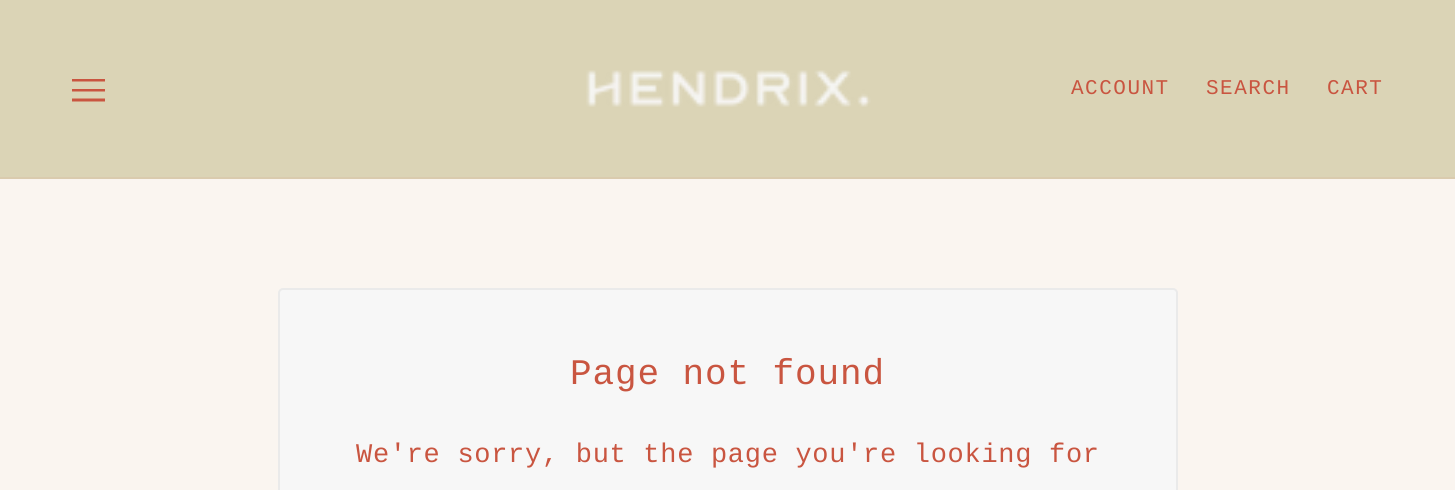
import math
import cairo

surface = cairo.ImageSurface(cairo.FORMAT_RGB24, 1455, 490)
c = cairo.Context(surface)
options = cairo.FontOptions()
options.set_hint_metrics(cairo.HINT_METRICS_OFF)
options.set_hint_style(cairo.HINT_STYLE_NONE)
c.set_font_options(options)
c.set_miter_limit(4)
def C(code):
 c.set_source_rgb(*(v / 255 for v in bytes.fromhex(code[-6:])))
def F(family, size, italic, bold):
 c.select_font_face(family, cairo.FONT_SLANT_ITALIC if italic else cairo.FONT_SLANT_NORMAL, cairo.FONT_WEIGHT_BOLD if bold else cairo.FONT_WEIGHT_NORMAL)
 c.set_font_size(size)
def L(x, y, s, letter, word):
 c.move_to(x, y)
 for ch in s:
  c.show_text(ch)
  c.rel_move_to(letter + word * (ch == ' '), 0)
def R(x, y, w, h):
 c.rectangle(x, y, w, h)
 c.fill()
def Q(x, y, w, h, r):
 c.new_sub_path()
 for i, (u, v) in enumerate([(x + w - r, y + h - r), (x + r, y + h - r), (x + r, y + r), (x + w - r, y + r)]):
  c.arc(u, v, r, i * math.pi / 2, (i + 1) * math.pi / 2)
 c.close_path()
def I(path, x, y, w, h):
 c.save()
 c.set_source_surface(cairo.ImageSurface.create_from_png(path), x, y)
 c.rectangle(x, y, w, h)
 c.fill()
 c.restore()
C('faf5f0')
c.paint()
C('dbd4b6')
R(0,0,1455,177)
C('dacbae')
R(0,177,1455,2)
C('c95540')
c.new_path()
c.move_to(72,81.5)
c.line_to(72,79)
c.line_to(105,79)
c.line_to(105,81.5)
c.close_path()
c.move_to(72,91.5)
c.line_to(72,89)
c.line_to(105,89)
c.line_to(105,91.5)
c.close_path()
c.move_to(72,101.5)
c.line_to(72,98.5)
c.line_to(105,98.5)
c.line_to(105,101.5)
c.close_path()
c.fill()
I('1.png',586,70,285,37)
F('Liberation Mono',21,0,0)
L(1071,94,'ACCOUNT',1.5,0)
L(1206,94,'SEARCH',1.5,0)
L(1327,94,'CART',1.5,0)
C('f7f7f7')
Q(279,289,898,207,4)
c.fill_preserve()
C('eaeaea')
c.stroke()
F('Liberation Mono',36,0,0)
C('c95540')
L(570,384,'Page not found',.9,0)
F('Liberation Mono',27,0,0)
L(356,462,'We\'re sorry, but the page you\'re looking for',.7,0)
surface.write_to_png('o.png')
